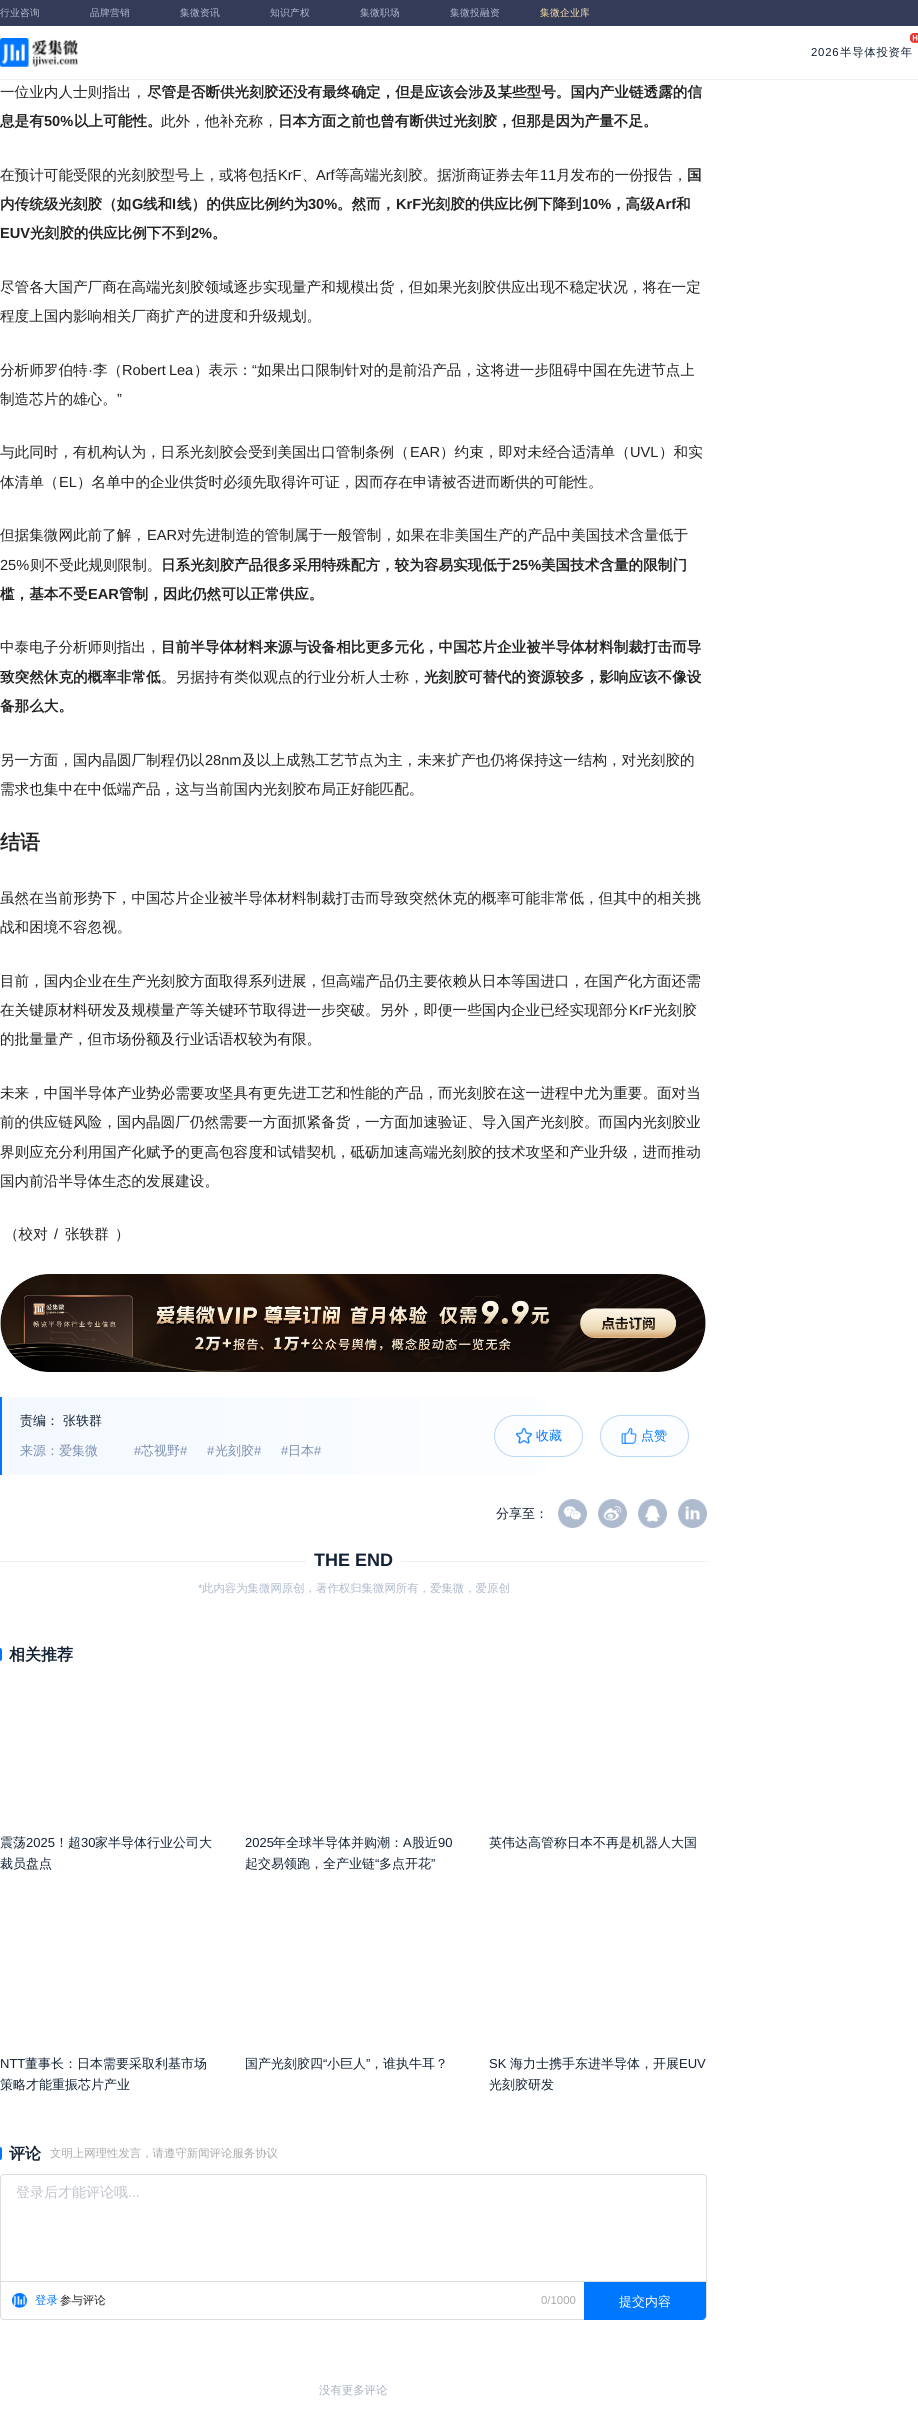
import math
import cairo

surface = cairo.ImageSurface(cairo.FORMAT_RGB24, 918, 2436)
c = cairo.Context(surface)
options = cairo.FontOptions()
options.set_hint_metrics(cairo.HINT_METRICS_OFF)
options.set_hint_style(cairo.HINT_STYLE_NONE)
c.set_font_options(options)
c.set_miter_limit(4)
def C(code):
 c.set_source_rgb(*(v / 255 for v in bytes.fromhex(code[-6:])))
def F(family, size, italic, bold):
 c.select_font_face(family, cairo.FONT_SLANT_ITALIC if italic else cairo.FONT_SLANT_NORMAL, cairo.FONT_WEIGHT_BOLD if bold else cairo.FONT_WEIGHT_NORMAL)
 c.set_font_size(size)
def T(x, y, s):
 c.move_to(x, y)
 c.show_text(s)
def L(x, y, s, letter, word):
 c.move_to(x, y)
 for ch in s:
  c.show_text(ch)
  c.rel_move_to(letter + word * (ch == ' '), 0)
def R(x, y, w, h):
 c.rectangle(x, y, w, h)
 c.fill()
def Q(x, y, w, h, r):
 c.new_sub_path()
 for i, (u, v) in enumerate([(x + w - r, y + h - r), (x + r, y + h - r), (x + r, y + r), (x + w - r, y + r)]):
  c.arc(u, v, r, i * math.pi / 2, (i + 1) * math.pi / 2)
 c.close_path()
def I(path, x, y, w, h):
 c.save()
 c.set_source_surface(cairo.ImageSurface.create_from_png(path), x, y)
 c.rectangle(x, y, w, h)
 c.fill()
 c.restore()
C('ffffff')
c.paint()
C('343b59')
R(0,0,918,26)
F('WenQuanYi Zen Hei Medium',9.75,0,0)
C('aebace')
L(0,16,'行业咨询',.25,0)
L(90,16,'品牌营销',.25,0)
L(180,16,'集微资讯',.25,0)
L(270,16,'知识产权',.25,0)
L(360,16,'集微职场',.25,0)
L(450,16,'集微投融资',.25,0)
gradient = cairo.LinearGradient(560,28,570,-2.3)
gradient.add_color_stop_rgba(0,0.969,0.839,0.549,1)
gradient.add_color_stop_rgba(1,1,0.933,0.843,1)
c.set_source(gradient)
L(540,16,'集微企业库',.25,0)
C('f0f0f0')
R(0,79,918,1)
I('1.png',0,38,78,29)
I('2.png',910,33,8,10)
F('Liberation Sans',11.4,0,0)
C('132234')
L(811,56,'2026',.75,0)
F('WenQuanYi Zen Hei Medium',11.4,0,0)
L(840,56,'半导体投资年',.75,0)
F('WenQuanYi Zen Hei Medium',14.6,0,0)
C('222222')
T(0,97,'一位业内人士则指出，')
F('WenQuanYi Zen Hei',14.6,0,1)
T(147,97,'尽管是否断供光刻胶还没有最终确定，但是应该会涉及某些型号。国内产业')
T(629,97,'链透露的信')
T(0,126,'息是有')
F('Liberation Sans',14.6,0,1)
T(44,126,'50%')
F('WenQuanYi Zen Hei',14.6,0,1)
T(74,126,'以上可能性。')
F('WenQuanYi Zen Hei Medium',14.6,0,0)
T(161,126,'此外，他补充称，')
F('WenQuanYi Zen Hei',14.6,0,1)
T(278,126,'日本方面之前也曾有断供过光刻胶，但那是因为产量不足。')
F('WenQuanYi Zen Hei Medium',14.6,0,0)
T(0,180,'在预计可能受限的光刻胶型号上，或将包括')
F('Liberation Sans',14.6,0,0)
T(278,180,'KrF')
F('WenQuanYi Zen Hei Medium',14.6,0,0)
T(302,180,'、')
F('Liberation Sans',14.6,0,0)
T(316,180,'Arf')
F('WenQuanYi Zen Hei Medium',14.6,0,0)
T(335,180,'等高端光刻胶。据浙商证券去年')
F('Liberation Sans',14.6,0,0)
T(540,180,'11')
F('WenQuanYi Zen Hei Medium',14.6,0,0)
T(556,180,'月发布的一份报告，')
F('WenQuanYi Zen Hei',14.6,0,1)
T(687,180,'国')
T(0,209,'内传统级光刻胶（如')
F('Liberation Sans',14.6,0,1)
T(132,209,'G')
F('WenQuanYi Zen Hei',14.6,0,1)
T(143,209,'线和')
F('Liberation Sans',14.6,0,1)
T(172,209,'I')
F('WenQuanYi Zen Hei',14.6,0,1)
T(177,209,'线）的供应比例约为')
F('Liberation Sans',14.6,0,1)
T(308,209,'30%')
F('WenQuanYi Zen Hei',14.6,0,1)
T(337,209,'。然而，')
F('Liberation Sans',14.6,0,1)
T(396,209,'KrF')
F('WenQuanYi Zen Hei',14.6,0,1)
T(421,209,'光刻胶的供应比例下降到')
F('Liberation Sans',14.6,0,1)
T(582,209,'10%')
F('WenQuanYi Zen Hei',14.6,0,1)
T(611,209,'，高级')
F('Liberation Sans',14.6,0,1)
T(655,209,'Arf')
F('WenQuanYi Zen Hei',14.6,0,1)
T(676,209,'和')
F('Liberation Sans',14.6,0,1)
T(0,238,'EUV')
F('WenQuanYi Zen Hei',14.6,0,1)
T(30,238,'光刻胶的供应比例下不到')
F('Liberation Sans',14.6,0,1)
T(191,238,'2%')
F('WenQuanYi Zen Hei',14.6,0,1)
T(212,238,'。')
F('WenQuanYi Zen Hei Medium',14.6,0,0)
T(0,292,'尽管各大国产厂商在高端光刻胶领域逐步实现量产和规模出货，但如果光刻胶供应出现不稳定状况，将在一定')
T(0,321,'程度上国内影响相关厂商扩产的进度和升级规划。')
T(0,375,'分析师罗伯特')
T(93,375,'李（')
F('Liberation Sans',14.6,0,0)
L(122,375,'Robert Lea',0,-1)
F('WenQuanYi Zen Hei Medium',14.6,0,0)
T(194,375,'）表示：')
F('Liberation Sans',14.6,0,0)
T(252,375,'“')
F('WenQuanYi Zen Hei Medium',14.6,0,0)
T(257,375,'如果出口限制针对的是前沿产品，这将进一步阻碍中国在先进节点上')
F('Liberation Sans',14.6,0,0)
T(88,375,'·')
F('WenQuanYi Zen Hei Medium',14.6,0,0)
T(0,404,'制造芯片的雄心。')
F('Liberation Sans',14.6,0,0)
T(117,404,'”')
F('WenQuanYi Zen Hei Medium',14.6,0,0)
T(0,457,'与此同时，有机构认为，日系光刻胶会受到美国出口管制条例（')
F('Liberation Sans',14.6,0,0)
T(410,457,'EAR')
F('WenQuanYi Zen Hei Medium',14.6,0,0)
T(440,457,'）约束，即对未经合适清单（')
F('Liberation Sans',14.6,0,0)
T(630,457,'UVL')
F('WenQuanYi Zen Hei Medium',14.6,0,0)
T(659,457,'）和实')
T(0,487,'体清单（')
F('Liberation Sans',14.6,0,0)
T(59,487,'EL')
F('WenQuanYi Zen Hei Medium',14.6,0,0)
T(77,487,'）名单中的企业供货时必须先取得许可证，因而存在申请被否进而断供的可能性。')
T(0,540,'但据集微网此前了解，')
F('Liberation Sans',14.6,0,0)
T(147,540,'EAR')
F('WenQuanYi Zen Hei Medium',14.6,0,0)
T(177,540,'对先进制造的管制属于一般管制，如果在非美国生产的产品中美国技术含量低于')
F('Liberation Sans',14.6,0,0)
T(0,570,'25%')
F('WenQuanYi Zen Hei Medium',14.6,0,0)
T(30,570,'则不受此规则限制。')
F('WenQuanYi Zen Hei',14.6,0,1)
T(161,570,'日系光刻胶产品很多采用特殊配方，较为容易实现低于')
F('Liberation Sans',14.6,0,1)
T(512,570,'25%')
F('WenQuanYi Zen Hei',14.6,0,1)
T(541,570,'美国技术含量的限制门')
T(0,599,'槛，基本不受')
F('Liberation Sans',14.6,0,1)
T(88,599,'EAR')
F('WenQuanYi Zen Hei',14.6,0,1)
T(119,599,'管制，因此仍然可以正常供应。')
F('WenQuanYi Zen Hei Medium',14.6,0,0)
T(0,652,'中泰电子分析师则指出，')
F('WenQuanYi Zen Hei',14.6,0,1)
T(161,652,'目前半导体材料来源与设备相比更多元化，中国芯片')
T(497,652,'企业被半导体材料制裁打击而导')
T(0,682,'致突然休克的概率非常低')
F('WenQuanYi Zen Hei Medium',14.6,0,0)
T(161,682,'。另据持有类似观点的行业分析人士称，')
F('WenQuanYi Zen Hei',14.6,0,1)
T(424,682,'光刻胶可替代的资源较多，影响应该不像设')
T(0,711,'备那么大。')
F('WenQuanYi Zen Hei Medium',14.6,0,0)
T(0,765,'另一方面，国内晶圆厂制程仍以')
F('Liberation Sans',14.6,0,0)
T(205,765,'28nm')
F('WenQuanYi Zen Hei Medium',14.6,0,0)
T(242,765,'及以上成熟工艺节点为主，未来扩产也仍将保持这一结构，对光刻胶的')
T(0,794,'需求也集中在中低端产品，这与当前国内光刻胶布局正好能匹配。')
F('WenQuanYi Zen Hei',20,0,1)
T(0,849,'结语')
F('WenQuanYi Zen Hei Medium',14.6,0,0)
T(0,903,'虽然在当前形势下，中国芯片企业被半导体材料制裁打击而导致突然休克的概率可能非常低，但其中的相关挑')
T(0,932,'战和困境不容忽视。')
T(0,986,'目前，国内企业在生产光刻胶方面取得系列进展，但高端产品仍主要依赖从日本等国进口，在国产化方面还需')
T(0,1015,'在关键原材料研发及规模量产等关键环节取得进一步突破。另外，即便一些国内企业已经实现部分')
F('Liberation Sans',14.6,0,0)
T(629,1015,'KrF')
F('WenQuanYi Zen Hei Medium',14.6,0,0)
T(653,1015,'光刻胶')
T(0,1044,'的批量量产，但市场份额及行业话语权较为有限。')
T(0,1098,'未来，中国半导体产业势必需要攻坚具有更先进工艺和性能的产品，而光刻胶在这一进程中尤为重要。面对当')
T(0,1127,'前的供应链风险，国内晶圆厂仍然需要一方面抓紧备货，一方面加速验证、导入国产光刻胶。而国内光刻胶业')
T(0,1157,'界则应充分利用国产化赋予的更高包容度和试错契机，砥砺加速高端光刻胶的技术攻坚和产业升级，进而推动')
T(0,1186,'国内前沿半导体生态的发展建设。')
T(4,1239,'（校对')
F('Liberation Sans',14.6,0,0)
T(54,1239,'/')
F('WenQuanYi Zen Hei Medium',14.6,0,0)
T(65,1239,'张轶群')
T(115,1239,'）')
I('3.png',0,1274,706,98)
gradient = cairo.LinearGradient(2,1436,707,1436)
gradient.add_color_stop_rgba(0,0.957,0.976,1,1)
gradient.add_color_stop_rgba(1,1,1,1,1)
c.set_source(gradient)
R(2,1397,545,78)
C('0077ff')
R(0,1397,2,78)
F('WenQuanYi Zen Hei Medium',13,0,0)
C('132234')
T(20,1425,'责编： 张轶群')
C('7b8faf')
T(20,1455,'来源：爱集微')
F('Liberation Sans',13,0,0)
T(134,1455,'#')
F('WenQuanYi Zen Hei Medium',13,0,0)
T(141,1455,'芯视野')
F('Liberation Sans',13,0,0)
T(180,1455,'#')
T(207,1455,'#')
F('WenQuanYi Zen Hei Medium',13,0,0)
T(215,1455,'光刻胶')
F('Liberation Sans',13,0,0)
T(254,1455,'#')
T(281,1455,'#')
F('WenQuanYi Zen Hei Medium',13,0,0)
T(288,1455,'日本')
F('Liberation Sans',13,0,0)
T(314,1455,'#')
Q(494.5,1415.5,88,41,20.5)
C('bad8f9')
c.set_line_width(1)
c.stroke()
I('4.png',516,1428,16,16)
F('WenQuanYi Zen Hei Medium',13,0,0)
C('0077ff')
T(536,1440,'收藏')
C('fbfdff')
Q(600.5,1415.5,88,41,20.5)
c.fill_preserve()
C('bad8f9')
c.stroke()
I('5.png',621,1428,16,16)
C('0077ff')
T(641,1440,'点赞')
C('132234')
T(496,1518,'分享至：')
I('6.png',558,1499,29,29)
I('7.png',598,1499,29,29)
I('8.png',638,1499,29,29)
I('9.png',678,1499,29,29)
C('f0f0f0')
R(0,1561,707,1)
C('ffffff')
R(306,1561,95,1)
F('Liberation Sans',18,0,1)
C('132234')
T(314,1566,'THE END')
F('Liberation Sans',11.4,0,0)
C('aebace')
T(198,1592,'*')
F('WenQuanYi Zen Hei Medium',11.4,0,0)
T(202,1592,'此内容为集微网原创，著作权归集微网所有，爱集微，爱原创')
C('0077ff')
c.new_path()
c.move_to(0,1648)
c.curve_to(1,1648,2,1649,2,1650)
c.line_to(2,1659)
c.curve_to(2,1660,1,1661,0,1661)
c.close_path()
c.fill()
F('WenQuanYi Zen Hei',16,0,1)
C('132234')
T(9,1660,'相关推荐')
F('WenQuanYi Zen Hei Medium',13,0,0)
T(0,1847,'震荡')
F('Liberation Sans',13,0,0)
T(26,1847,'2025')
F('WenQuanYi Zen Hei Medium',13,0,0)
T(55,1847,'！超')
F('Liberation Sans',13,0,0)
T(81,1847,'30')
F('WenQuanYi Zen Hei Medium',13,0,0)
T(95,1847,'家半导体行业公司大')
T(0,1868,'裁员盘点')
F('Liberation Sans',13,0,0)
T(245,1847,'2025')
F('WenQuanYi Zen Hei Medium',13,0,0)
T(273,1847,'年全球半导体并购潮：')
F('Liberation Sans',13,0,0)
T(403,1847,'A')
F('WenQuanYi Zen Hei Medium',13,0,0)
T(412,1847,'股近')
F('Liberation Sans',13,0,0)
T(438,1847,'90')
F('WenQuanYi Zen Hei Medium',13,0,0)
T(245,1868,'起交易领跑，全产业链')
F('Liberation Sans',13,0,0)
T(375,1868,'“')
F('WenQuanYi Zen Hei Medium',13,0,0)
T(379,1868,'多点开花')
F('Liberation Sans',13,0,0)
T(431,1868,'”')
F('WenQuanYi Zen Hei Medium',13,0,0)
T(489,1847,'英伟达高管称日本不再是机器人大国')
F('Liberation Sans',13,0,0)
T(0,2068,'NTT')
F('WenQuanYi Zen Hei Medium',13,0,0)
T(25,2068,'董事长：日本需要采取利基市场')
T(0,2089,'策略才能重振芯片产业')
T(245,2068,'国产光刻胶四')
F('Liberation Sans',13,0,0)
T(323,2068,'“')
F('WenQuanYi Zen Hei Medium',13,0,0)
T(327,2068,'小巨人')
F('Liberation Sans',13,0,0)
T(366,2068,'”')
F('WenQuanYi Zen Hei Medium',13,0,0)
T(370,2068,'，谁执牛耳？')
F('Liberation Sans',13,0,0)
T(489,2068,'SK')
F('WenQuanYi Zen Hei Medium',13,0,0)
T(510,2068,'海力士携手东进半导体，开展')
F('Liberation Sans',13,0,0)
T(679,2068,'EUV')
F('WenQuanYi Zen Hei Medium',13,0,0)
T(489,2089,'光刻胶研发')
C('0077ff')
c.new_path()
c.move_to(0,2147)
c.curve_to(1,2147,2,2148,2,2149)
c.line_to(2,2158)
c.curve_to(2,2159,1,2160,0,2160)
c.close_path()
c.fill()
F('WenQuanYi Zen Hei',16,0,1)
C('132234')
T(9,2159,'评论')
F('WenQuanYi Zen Hei Medium',11.4,0,0)
C('aaaaaa')
T(50,2157,'文明上网理性发言，请遵守新闻评论服务协议')
Q(.5,2174.5,706,145,3.5)
C('dddddd')
c.stroke()
F('WenQuanYi Zen Hei Medium',14,0,0)
C('c0c4cc')
T(16,2197,'登录后才能评论哦')
F('Liberation Sans',14,0,0)
T(128,2197,'...')
C('dddddd')
R(1,2281,705,1)
I('10.png',12,2293,15,15)
F('WenQuanYi Zen Hei Medium',11.4,0,0)
C('0077ff')
T(35,2304,'登录')
C('222222')
T(60,2304,'参与评论')
F('Liberation Sans',11.4,0,0)
C('aaaaaa')
T(541,2304,'0/1000')
C('0077ff')
c.new_path()
c.move_to(584,2282)
c.line_to(706,2282)
c.line_to(706,2316)
c.curve_to(706,2318,704,2320,702,2320)
c.line_to(584,2320)
c.close_path()
c.fill()
F('WenQuanYi Zen Hei Medium',13,0,0)
C('ffffff')
T(619,2306,'提交内容')
F('WenQuanYi Zen Hei Medium',11.4,0,0)
C('a7b1c2')
T(319,2394,'没有更多评论')
surface.write_to_png('o.png')
